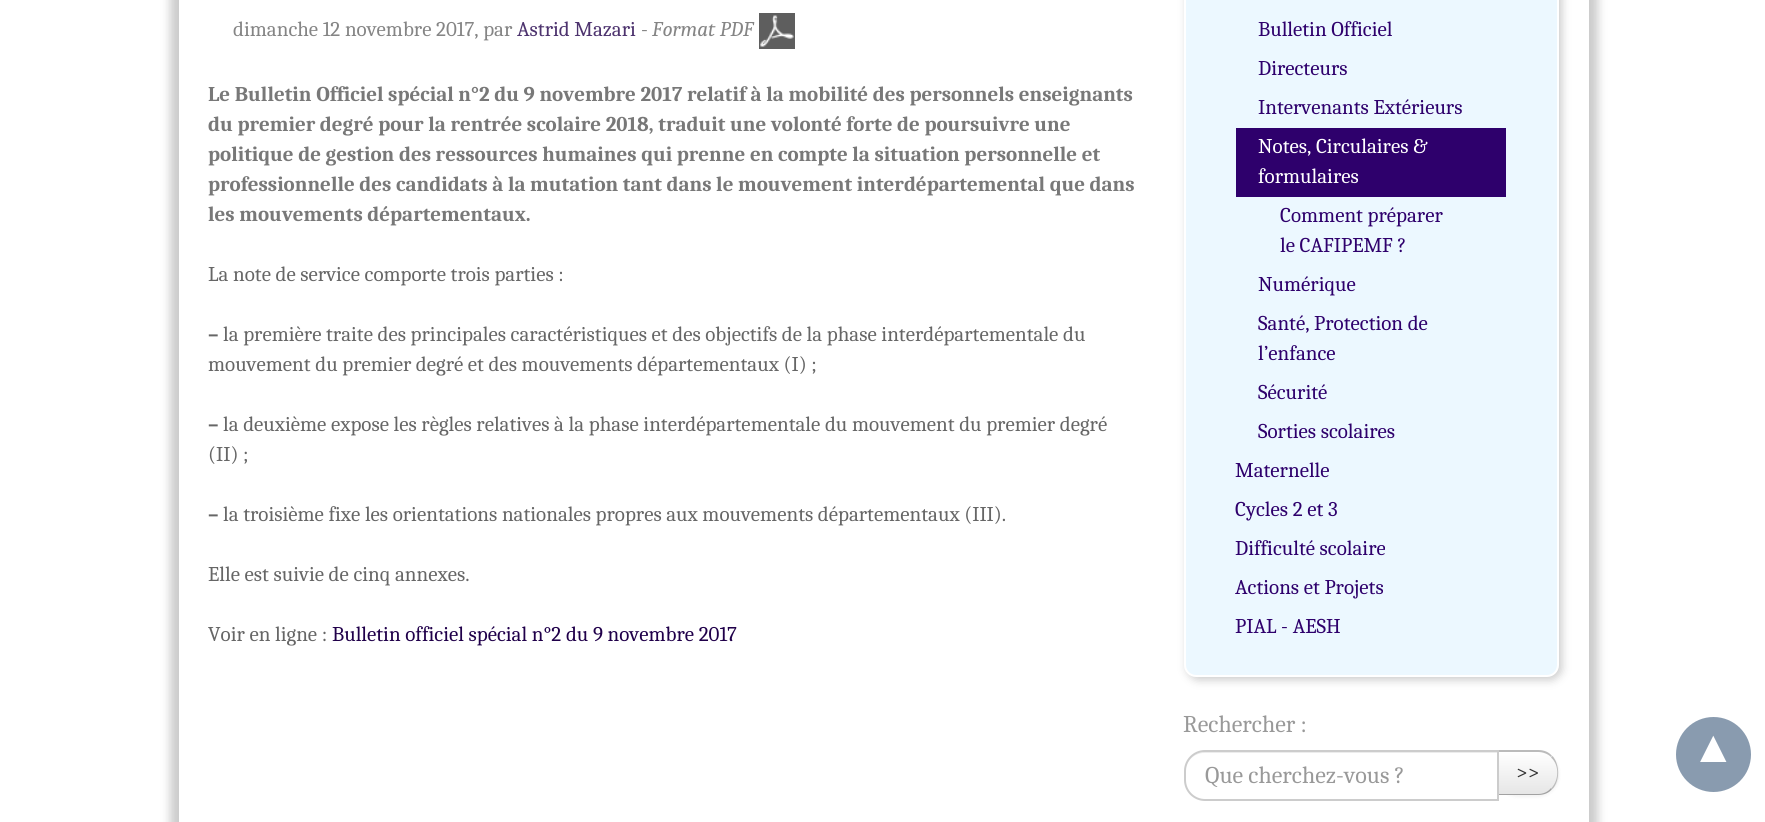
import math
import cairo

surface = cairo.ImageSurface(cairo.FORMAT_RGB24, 1765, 822)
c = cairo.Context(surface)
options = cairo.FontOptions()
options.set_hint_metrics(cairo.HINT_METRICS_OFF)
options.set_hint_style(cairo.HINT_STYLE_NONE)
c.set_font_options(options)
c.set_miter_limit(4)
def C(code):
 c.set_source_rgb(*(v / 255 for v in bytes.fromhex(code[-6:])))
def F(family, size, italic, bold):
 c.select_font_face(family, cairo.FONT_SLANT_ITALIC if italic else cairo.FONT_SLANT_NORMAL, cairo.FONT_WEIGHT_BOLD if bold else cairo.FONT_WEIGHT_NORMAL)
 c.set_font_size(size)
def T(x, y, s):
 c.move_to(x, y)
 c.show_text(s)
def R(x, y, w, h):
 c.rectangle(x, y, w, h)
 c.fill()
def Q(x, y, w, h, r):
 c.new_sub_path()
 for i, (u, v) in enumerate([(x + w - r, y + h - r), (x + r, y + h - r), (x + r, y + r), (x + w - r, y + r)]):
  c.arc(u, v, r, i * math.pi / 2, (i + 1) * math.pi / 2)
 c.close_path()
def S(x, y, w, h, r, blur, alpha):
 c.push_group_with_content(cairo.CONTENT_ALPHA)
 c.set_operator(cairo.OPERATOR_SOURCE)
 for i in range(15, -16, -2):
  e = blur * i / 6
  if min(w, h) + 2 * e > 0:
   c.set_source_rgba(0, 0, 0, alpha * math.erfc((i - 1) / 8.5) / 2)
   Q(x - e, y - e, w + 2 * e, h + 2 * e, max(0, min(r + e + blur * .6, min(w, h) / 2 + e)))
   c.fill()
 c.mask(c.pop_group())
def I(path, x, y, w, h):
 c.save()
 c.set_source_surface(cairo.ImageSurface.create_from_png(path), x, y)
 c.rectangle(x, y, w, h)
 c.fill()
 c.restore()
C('ffffff')
c.paint()
C('cccccc')
S(170,-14,1410,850,0,4.5,1)
S(188,-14,1410,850,0,4.5,1)
C('ffffff')
R(179,0,1410,822)
F('Caladea',21,0,0)
C('858585')
T(233,36,'dimanche 12 novembre 2017, par')
C('4d336e')
T(517,36,'Astrid Mazari')
C('858585')
T(641,36,'-')
F('Caladea',21,1,0)
T(652,36,'Format PDF')
I('1.png',759,13,36,36)
F('Caladea',21,0,1)
C('787878')
T(208,101,'Le Bulletin Officiel spécial n°2 du 9 novembre 2017 relatif à la mobilité des personnels enseignants')
T(208,131,'du premier degré pour la rentrée scolaire 2018, traduit une volonté forte de poursuivre une')
T(208,161,'politique de gestion des ressources humaines qui prenne en compte la situation personnelle et')
T(208,191,'professionnelle des candidats à la mutation tant dans le mouvement interdépartemental que dans')
T(208,221,'les mouvements départementaux.')
F('Caladea',21,0,0)
C('666666')
T(208,281,'La note de service comporte trois parties :')
F('Caladea',21,0,1)
T(208,341,'–')
F('Caladea',21,0,0)
T(223,341,'la première traite des principales caractéristiques et des objectifs de la phase interdépartementale du')
T(208,371,'mouvement du premier degré et des mouvements départementaux (I) ;')
F('Caladea',21,0,1)
T(208,431,'–')
F('Caladea',21,0,0)
T(223,431,'la deuxième expose les règles relatives à la phase interdépartementale du mouvement du premier degré')
T(208,461,'(II) ;')
F('Caladea',21,0,1)
T(208,521,'–')
F('Caladea',21,0,0)
T(223,521,'la troisième fixe les orientations nationales propres aux mouvements départementaux (III).')
T(208,581,'Elle est suivie de cinq annexes.')
T(208,641,'Voir en ligne :')
C('20004a')
T(332,641,'Bulletin officiel spécial n°2 du 9 novembre 2017')
C('cccccc')
S(1187,-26,375,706,12,4.5,1)
C('ecf8ff')
Q(1185,-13,373,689,11)
c.fill_preserve()
C('ffffff')
c.stroke()
C('2e006c')
T(1258,36,'Bulletin Officiel')
T(1258,75,'Directeurs')
T(1258,114,'Intervenants Extérieurs')
R(1236,128,270,69)
C('ffffff')
T(1258,153,'Notes, Circulaires &')
T(1258,183,'formulaires')
C('2e006c')
T(1280,222,'Comment préparer')
T(1280,252,'le CAFIPEMF ?')
T(1258,291,'Numérique')
T(1258,330,'Santé, Protection de')
T(1258,360,'l’enfance')
T(1258,399,'Sécurité')
T(1258,438,'Sorties scolaires')
T(1235,477,'Maternelle')
T(1235,516,'Cycles 2 et 3')
T(1235,555,'Difficulté scolaire')
T(1235,594,'Actions et Projets')
T(1235,633,'PIAL - AESH')
F('Caladea',24,0,0)
C('999999')
T(1183,732,'Rechercher :')
C('000000')
S(1497,752,62,45,21,1.5,.05)
c.save()
c.new_path()
c.move_to(1497,750)
c.line_to(1538,750)
c.curve_to(1549.5,750,1559,759.5,1559,771)
c.line_to(1559,774)
c.curve_to(1559,785.5,1549.5,795,1538,795)
c.line_to(1497,795)
c.close_path()
c.clip()
gradient = cairo.LinearGradient(1528,752,1528,794)
gradient.add_color_stop_rgba(0,1,1,1,1)
gradient.add_color_stop_rgba(1,0.902,0.902,0.902,1)
c.set_source(gradient)
R(1499,752,60,42)
c.restore()
C('bbbbbb')
c.new_path()
c.move_to(1497,750)
c.line_to(1499,752)
c.line_to(1538,752)
c.curve_to(1543,752,1548,754,1551,757)
c.line_to(1552,756)
c.curve_to(1549,752,1544,750,1538,750)
c.close_path()
c.fill()
c.new_path()
c.move_to(1552.5,756)
c.curve_to(1560,764.5,1560,780.5,1552.5,789)
c.line_to(1551.5,788)
c.curve_to(1559,780,1559.5,765,1551,757.5)
c.close_path()
c.fill()
C('a2a2a2')
c.new_path()
c.move_to(1538,795)
c.curve_to(1544,795,1549,793,1552,789)
c.line_to(1551,788)
c.curve_to(1548,792,1543,794,1538,794)
c.line_to(1498,794)
c.line_to(1497,795)
c.close_path()
c.fill()
C('ffffff')
c.new_path()
c.move_to(1205,750)
c.line_to(1499,750)
c.line_to(1499,801)
c.line_to(1205,801)
c.curve_to(1193.5,801,1184,791.5,1184,780)
c.line_to(1184,771)
c.curve_to(1184,759.5,1193.5,750,1205,750)
c.close_path()
c.fill()
C('ececec')
c.new_path()
c.move_to(1204,753)
c.line_to(1497,753)
c.line_to(1497,752)
c.line_to(1205,752)
c.curve_to(1194,752,1185,761,1185,772)
c.curve_to(1185,762,1194,753,1204,753)
c.close_path()
c.fill()
c.new_path()
c.move_to(1205,751)
c.line_to(1498,751)
c.line_to(1498,800)
c.line_to(1205,800)
c.curve_to(1194,800,1185,791,1185,780)
c.line_to(1185,771)
c.curve_to(1185,760,1194,751,1205,751)
c.close_path()
C('cccccc')
c.stroke()
C('999999')
T(1205,783,'Que cherchez-vous ?')
F('Caladea',21,0,0)
C('333333')
T(1516,779,'>>')
C('899baf')
c.new_path()
c.arc(1713.5,754.5,37.5,0,2 * math.pi)
c.fill()
F('Liberation Sans',45,0,0)
C('ffffff')
T(1691,762,'▲')
surface.write_to_png('o.png')
